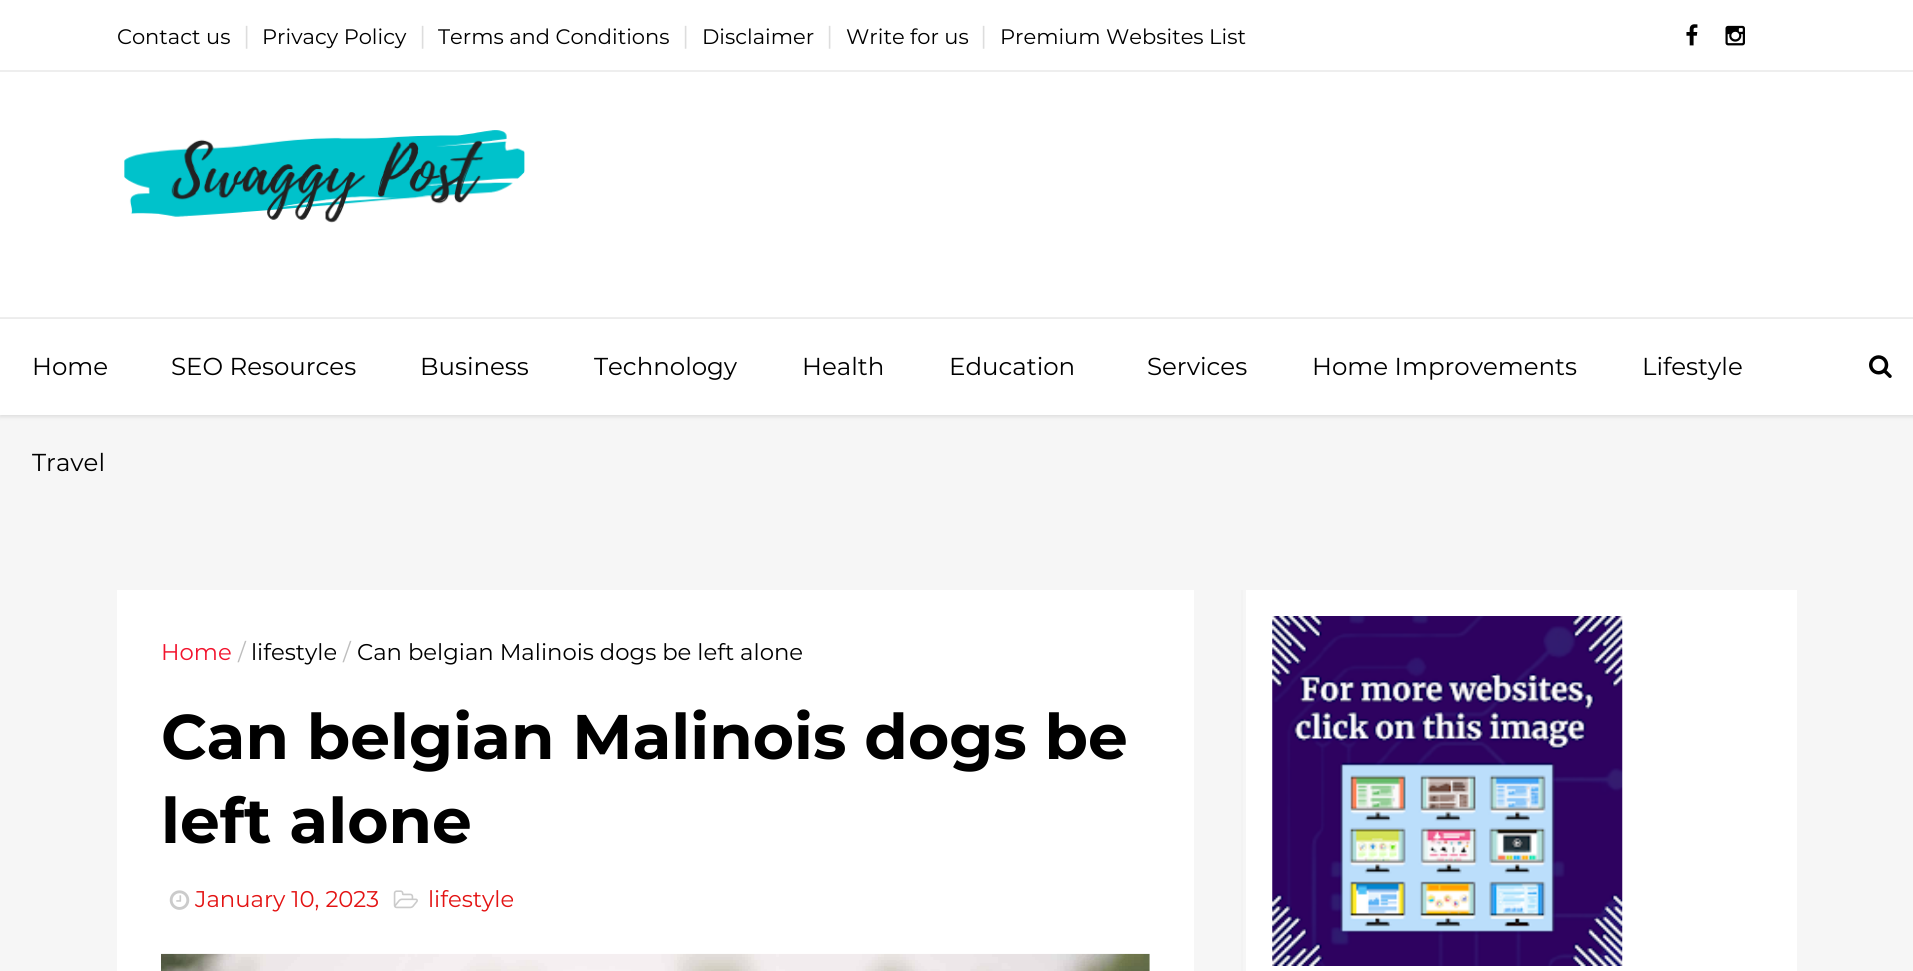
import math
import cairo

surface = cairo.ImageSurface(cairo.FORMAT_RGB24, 1913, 971)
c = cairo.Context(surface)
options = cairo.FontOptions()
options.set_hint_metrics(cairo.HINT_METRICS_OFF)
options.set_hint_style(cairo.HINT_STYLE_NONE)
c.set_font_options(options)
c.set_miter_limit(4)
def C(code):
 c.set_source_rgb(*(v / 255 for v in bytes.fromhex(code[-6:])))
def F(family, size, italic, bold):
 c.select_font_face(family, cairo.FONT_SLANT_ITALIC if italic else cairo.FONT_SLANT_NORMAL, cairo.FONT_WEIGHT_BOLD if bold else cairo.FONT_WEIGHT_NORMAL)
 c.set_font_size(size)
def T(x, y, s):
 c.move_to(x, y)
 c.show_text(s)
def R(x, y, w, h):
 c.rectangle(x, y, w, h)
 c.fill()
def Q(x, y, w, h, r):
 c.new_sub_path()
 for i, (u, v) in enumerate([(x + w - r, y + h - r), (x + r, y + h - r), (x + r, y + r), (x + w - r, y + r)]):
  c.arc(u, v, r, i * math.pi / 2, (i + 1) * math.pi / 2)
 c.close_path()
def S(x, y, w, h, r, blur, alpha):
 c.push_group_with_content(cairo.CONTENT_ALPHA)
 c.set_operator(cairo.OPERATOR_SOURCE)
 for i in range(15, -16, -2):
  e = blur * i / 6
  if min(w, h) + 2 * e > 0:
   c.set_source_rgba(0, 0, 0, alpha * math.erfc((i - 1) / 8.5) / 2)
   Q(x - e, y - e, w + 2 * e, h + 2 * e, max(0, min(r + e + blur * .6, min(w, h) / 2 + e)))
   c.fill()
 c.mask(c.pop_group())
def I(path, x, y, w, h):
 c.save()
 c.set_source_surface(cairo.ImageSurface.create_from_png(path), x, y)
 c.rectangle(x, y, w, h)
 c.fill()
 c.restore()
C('f6f6f6')
c.paint()
C('ffffff')
R(0,0,1913,70)
C('eeeeee')
R(0,70,1913,2)
F('Montserrat Thin',21,0,0)
C('000000')
T(117,44,'Contact us')
F('Montserrat Thin',24.5,0,0)
C('dddddd')
T(243,44,'|')
F('Montserrat Thin',21,0,0)
C('000000')
T(262,44,'Privacy Policy')
F('Montserrat Thin',24.5,0,0)
C('dddddd')
T(419,44,'|')
F('Montserrat Thin',21,0,0)
C('000000')
T(438,44,'Terms and Conditions')
F('Montserrat Thin',24.5,0,0)
C('dddddd')
T(682,44,'|')
F('Montserrat Thin',21,0,0)
C('000000')
T(702,44,'Disclaimer')
F('Montserrat Thin',24.5,0,0)
C('dddddd')
T(826,44,'|')
F('Montserrat Thin',21,0,0)
C('000000')
T(846,44,'Write for us')
F('Montserrat Thin',24.5,0,0)
C('dddddd')
T(980,44,'|')
F('Montserrat Thin',21,0,0)
C('000000')
T(1000,44,'Premium Websites List')
I('1.png',1686,24,12,22)
I('2.png',1725,25,20,21)
C('000000')
S(0,319,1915,98,0,2,.1)
C('ffffff')
R(0,72,1913,245)
I('3.png',124,130,401,93)
R(0,319,1913,96)
C('eeeeee')
R(0,317,1913,1)
F('Montserrat Thin',24.5,0,0)
C('000000')
T(171,375,'SEO Resources')
T(420,375,'Business')
T(594,375,'Technology')
T(802,375,'Health')
T(949,375,'Education')
T(1147,375,'Services')
T(1312,375,'Home Improvements')
T(1642,375,'Lifestyle')
T(32,471,'Travel')
T(32,375,'Home')
I('4.png',1869,355,23,23)
C('f3f3f3')
R(1241,590,2,381)
C('ffffff')
R(117,590,1077,381)
F('Montserrat Thin',22.75,0,0)
C('f2132d')
T(161,660,'Home')
C('bdbdbd')
T(238,660,'/')
C('000000')
T(251,660,'lifestyle')
C('bdbdbd')
T(343,660,'/')
C('000000')
T(357,660,'Can belgian Malinois dogs be left alone')
F('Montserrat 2 Thin',63,0,0)
T(161,759,'Can belgian Malinois dogs be')
T(161,843,'left alone')
I('5.png',169,890,21,20)
F('Montserrat Thin',22.75,0,0)
C('e31313')
T(195,907,'January 10, 2023')
I('6.png',393,890,25,19)
T(428,907,'lifestyle')
I('7.png',161,953,989,18)
C('ffffff')
R(1246,590,551,381)
I('8.png',1272,616,351,350)
surface.write_to_png('o.png')
